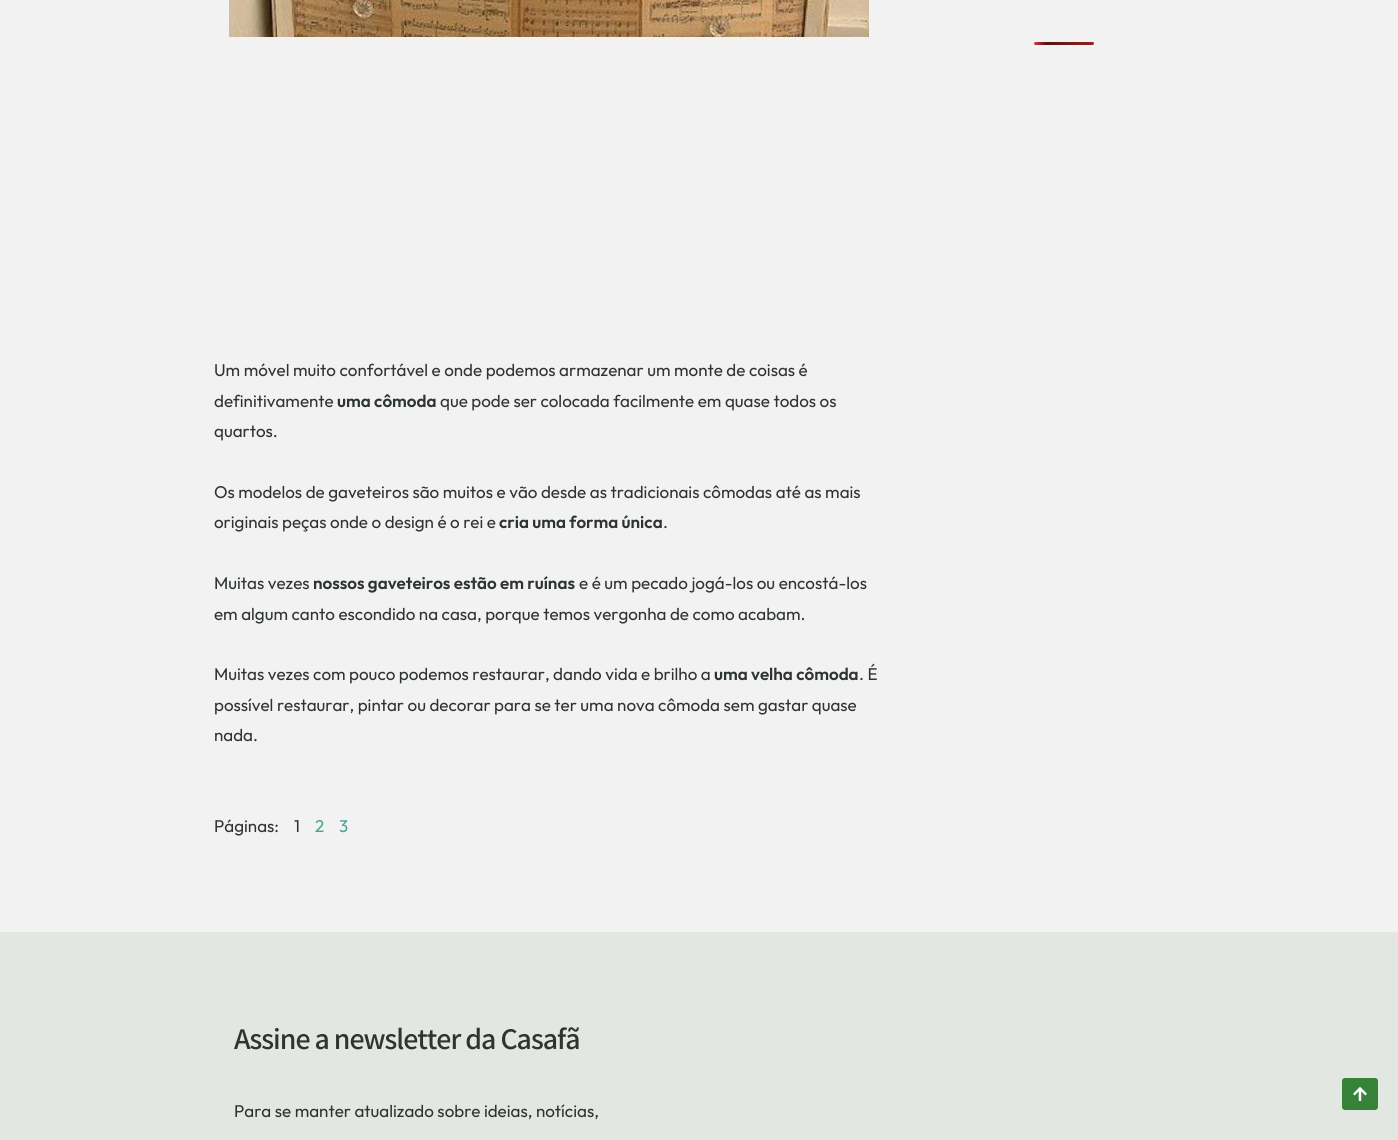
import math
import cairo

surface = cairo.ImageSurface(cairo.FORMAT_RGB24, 1398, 1140)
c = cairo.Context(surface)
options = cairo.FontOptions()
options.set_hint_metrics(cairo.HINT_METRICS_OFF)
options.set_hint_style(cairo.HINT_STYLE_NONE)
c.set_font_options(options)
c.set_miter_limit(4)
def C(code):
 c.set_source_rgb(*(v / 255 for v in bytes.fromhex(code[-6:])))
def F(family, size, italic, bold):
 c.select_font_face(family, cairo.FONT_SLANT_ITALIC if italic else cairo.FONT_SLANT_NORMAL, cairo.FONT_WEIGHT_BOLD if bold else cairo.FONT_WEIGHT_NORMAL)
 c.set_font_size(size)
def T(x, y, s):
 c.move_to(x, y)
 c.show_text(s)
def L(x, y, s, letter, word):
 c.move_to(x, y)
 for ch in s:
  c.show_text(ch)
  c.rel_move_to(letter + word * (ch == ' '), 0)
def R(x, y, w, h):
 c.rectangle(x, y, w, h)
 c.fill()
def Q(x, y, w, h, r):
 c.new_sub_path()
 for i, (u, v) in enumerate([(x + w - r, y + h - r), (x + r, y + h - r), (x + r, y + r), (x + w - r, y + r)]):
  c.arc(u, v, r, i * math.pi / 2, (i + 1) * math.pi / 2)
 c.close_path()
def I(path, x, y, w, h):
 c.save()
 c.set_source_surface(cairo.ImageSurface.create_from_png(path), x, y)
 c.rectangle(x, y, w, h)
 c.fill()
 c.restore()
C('f2f2f2')
c.paint()
gradient = cairo.LinearGradient(1034,44,1154,43)
gradient.add_color_stop_rgba(0,0.867,0.216,0.216,1)
gradient.add_color_stop_rgba(.1,0.341,0.075,0.075,1)
gradient.add_color_stop_rgba(1,0.867,0.216,0.216,1)
c.set_source(gradient)
Q(1034,42,60,3,1.5)
c.fill()
I('1.png',229,0,640,37)
F('Outfit',17,0,0)
C('2e3433')
T(214,376,'Um móvel muito confortável e onde podemos armazenar um monte de coisas é')
T(214,407,'definitivamente')
F('Outfit SemiBold',17,0,0)
T(337,407,'uma cômoda')
F('Outfit',17,0,0)
T(440,407,'que pode ser colocada facilmente em quase todos os')
T(214,437,'quartos.')
T(214,498,'Os modelos de gaveteiros são muitos e vão desde as tradicionais cômodas até as mais')
T(214,528,'originais peças onde o design é o rei e')
F('Outfit SemiBold',17,0,0)
T(499,528,'cria uma forma única')
F('Outfit',17,0,0)
T(663,528,'.')
T(214,589,'Muitas vezes')
F('Outfit SemiBold',17,0,0)
T(313,589,'nossos gaveteiros estão em ruínas')
F('Outfit',17,0,0)
T(579,589,'e é um pecado jogá-los ou encostá-los')
T(214,620,'em algum canto escondido na casa, porque temos vergonha de como acabam.')
T(214,680,'Muitas vezes com pouco podemos restaurar, dando vida e brilho a')
F('Outfit SemiBold',17,0,0)
T(714,680,'uma velha cômoda')
F('Outfit',17,0,0)
T(859,680,'. É')
T(214,711,'possível restaurar, pintar ou decorar para se ter uma nova cômoda sem gastar quase')
T(214,741,'nada.')
T(214,832,'Páginas:')
T(294,832,'1')
C('49a392')
T(315,832,'2')
T(339,832,'3')
C('e2e7e1')
R(0,932,1398,208)
F('Assistant SemiBold',30,0,0)
C('2e3433')
L(234,1049,'Assine a newsletter da Casafã',-1,0)
F('Outfit',17,0,0)
T(234,1117,'Para se manter atualizado sobre ideias, notícias,')
C('368239')
Q(1342,1078,36,32,3)
c.fill()
I('2.png',1353,1087,14,14)
surface.write_to_png('o.png')
